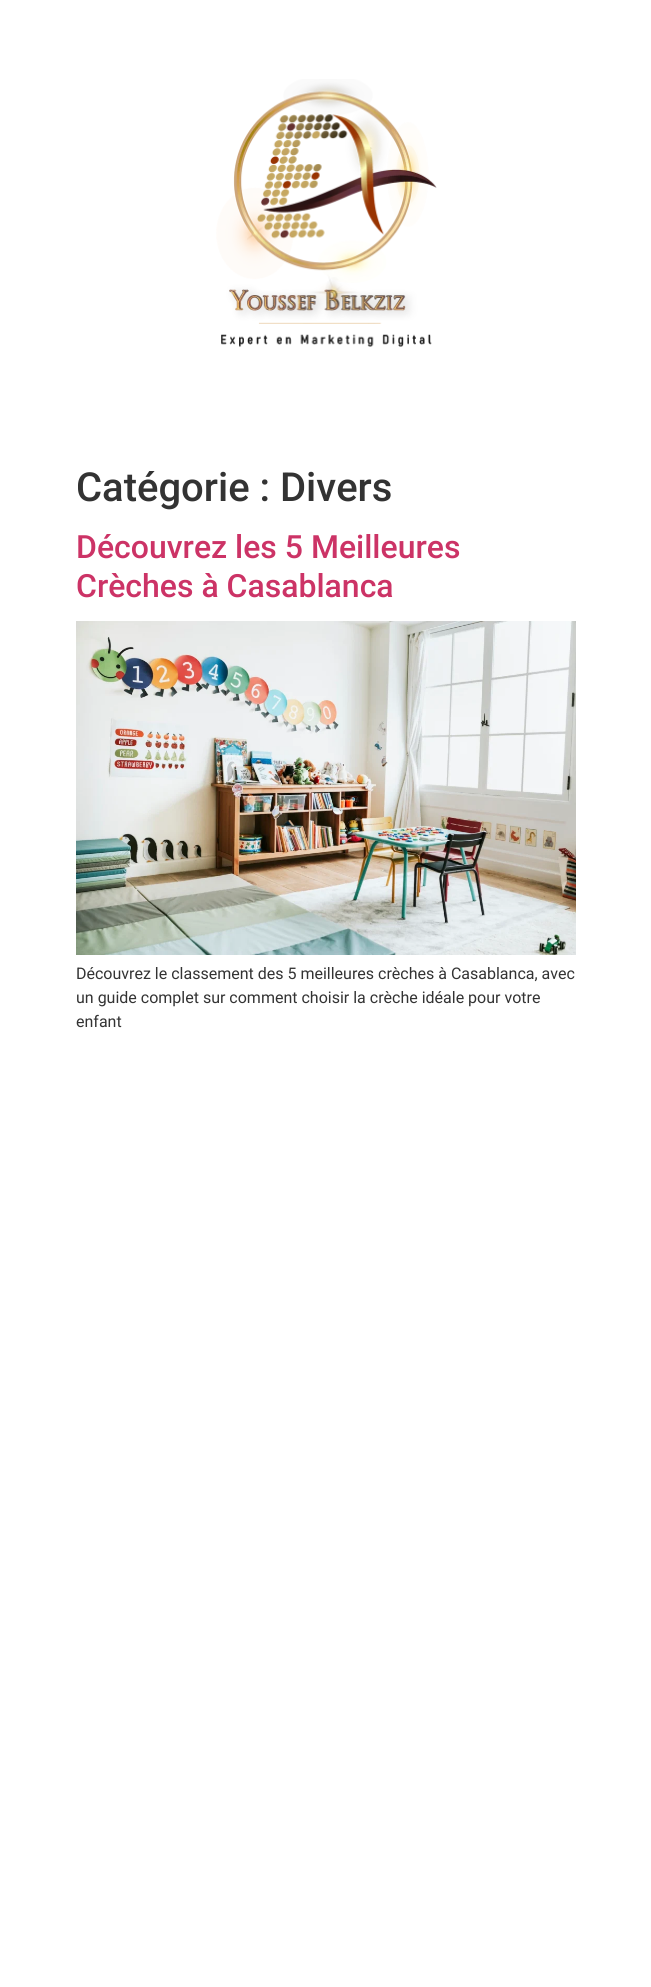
import math
import cairo

surface = cairo.ImageSurface(cairo.FORMAT_RGB24, 651, 1987)
c = cairo.Context(surface)
options = cairo.FontOptions()
options.set_hint_metrics(cairo.HINT_METRICS_OFF)
options.set_hint_style(cairo.HINT_STYLE_NONE)
c.set_font_options(options)
c.set_miter_limit(4)
def C(code):
 c.set_source_rgb(*(v / 255 for v in bytes.fromhex(code[-6:])))
def F(family, size, italic, bold):
 c.select_font_face(family, cairo.FONT_SLANT_ITALIC if italic else cairo.FONT_SLANT_NORMAL, cairo.FONT_WEIGHT_BOLD if bold else cairo.FONT_WEIGHT_NORMAL)
 c.set_font_size(size)
def T(x, y, s):
 c.move_to(x, y)
 c.show_text(s)
def I(path, x, y, w, h):
 c.save()
 c.set_source_surface(cairo.ImageSurface.create_from_png(path), x, y)
 c.rectangle(x, y, w, h)
 c.fill()
 c.restore()
C('ffffff')
c.paint()
I('1.png',216,79,221,268)
F('Roboto Medium',40,0,0)
C('333333')
T(76,501,'Catégorie : Divers')
F('Roboto Medium',32,0,0)
C('cc3366')
T(76,558,'Découvrez les 5 Meilleures')
T(76,597,'Crèches à Casablanca')
I('2.png',76,621,500,334)
F('Roboto',16,0,0)
C('333333')
T(76,979,'Découvrez le classement des 5 meilleures crèches à Casablanca, avec')
T(76,1003,'un guide complet sur comment choisir la crèche idéale pour votre')
T(76,1027,'enfant')
surface.write_to_png('o.png')
